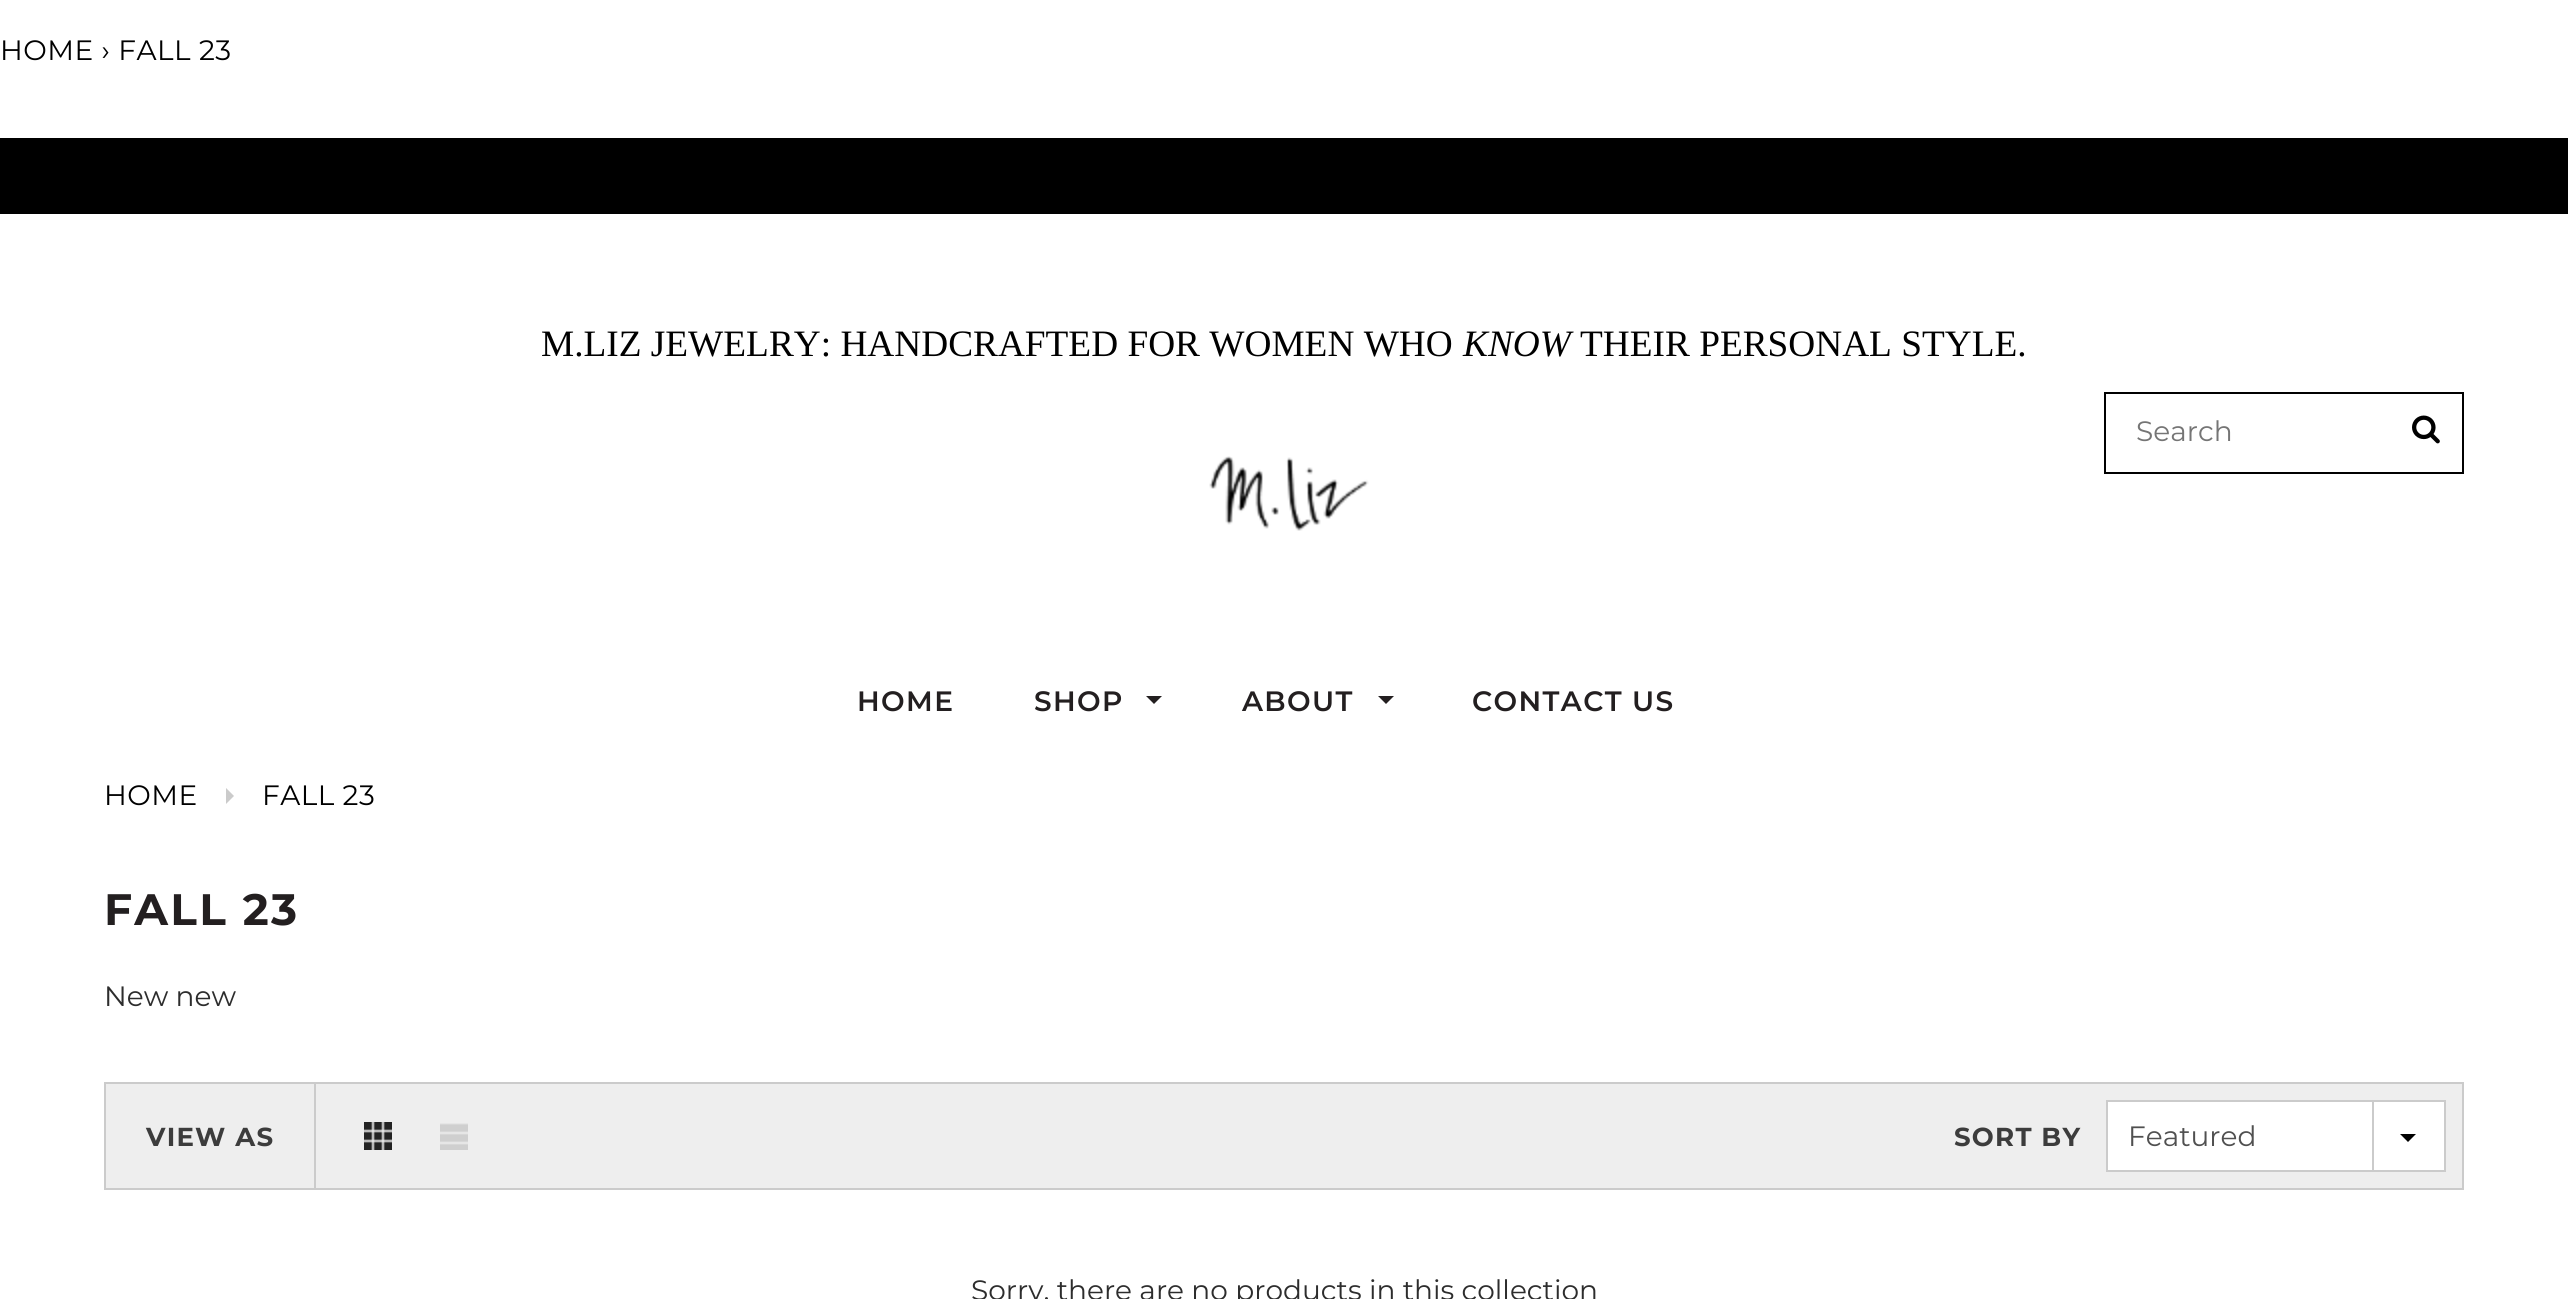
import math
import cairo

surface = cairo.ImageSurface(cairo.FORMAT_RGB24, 2568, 1299)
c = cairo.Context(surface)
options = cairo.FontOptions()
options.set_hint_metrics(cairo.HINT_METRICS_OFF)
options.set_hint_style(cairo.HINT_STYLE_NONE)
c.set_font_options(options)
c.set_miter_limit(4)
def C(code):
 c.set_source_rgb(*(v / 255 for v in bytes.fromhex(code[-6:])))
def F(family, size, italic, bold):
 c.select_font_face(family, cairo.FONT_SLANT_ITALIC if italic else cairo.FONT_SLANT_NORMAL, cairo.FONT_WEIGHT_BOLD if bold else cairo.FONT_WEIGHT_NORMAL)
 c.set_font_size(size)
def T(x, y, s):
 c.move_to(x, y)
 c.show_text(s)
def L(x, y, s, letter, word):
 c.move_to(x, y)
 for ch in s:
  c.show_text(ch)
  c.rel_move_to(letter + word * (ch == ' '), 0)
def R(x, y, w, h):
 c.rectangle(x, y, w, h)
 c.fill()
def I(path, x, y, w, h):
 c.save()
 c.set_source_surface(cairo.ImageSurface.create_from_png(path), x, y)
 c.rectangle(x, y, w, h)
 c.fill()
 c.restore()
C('ffffff')
c.paint()
F('Montserrat',28,0,0)
C('000000')
L(0,60,'HOME › FALL 23',.5,0)
R(0,138,2568,76)
F('Liberation Serif',37.3,0,0)
T(541,356,'M.LIZ JEWELRY: HANDCRAFTED FOR WOMEN WHO')
F('Liberation Serif',37.3,1,0)
T(1463,356,'KNOW')
F('Liberation Serif',37.3,0,0)
T(1580,356,'THEIR PERSONAL STYLE.')
c.rectangle(2105,393,358,80)
c.stroke()
F('Montserrat',28,0,0)
C('757575')
T(2136,441,'Search')
I('1.png',2412,415,28,29)
I('2.png',1209,456,160,75)
F('Montserrat SemiBold',28,0,0)
C('231f20')
L(857,711,'HOME',1.4,0)
L(1034,711,'SHOP',1.4,0)
c.new_path()
c.move_to(1146,696)
c.line_to(1162,696)
c.line_to(1154,704)
c.close_path()
c.fill()
L(1242,711,'ABOUT',1.4,0)
c.new_path()
c.move_to(1378,696)
c.line_to(1394,696)
c.line_to(1386,704)
c.close_path()
c.fill()
L(1472,711,'CONTACT US',1.4,0)
F('Montserrat',28,0,0)
C('000000')
L(104,805,'HOME',.5,0)
C('cbcbcb')
c.new_path()
c.move_to(226,804)
c.line_to(226,788)
c.line_to(234,796)
c.close_path()
c.fill()
C('000000')
L(262,805,'FALL 23',.5,0)
F('Montserrat',44,0,1)
C('231f20')
L(104,925,'FALL 23',2.25,0)
F('Montserrat',28,0,0)
C('2d2d2d')
T(104,1006,'New new')
C('eeeeee')
c.rectangle(105,1083,2358,106)
c.fill_preserve()
C('cbcbcb')
c.stroke()
R(314,1084,2,104)
F('Montserrat',26,0,1)
C('3c3c3c')
L(146,1146,'VIEW AS',1.25,0)
I('3.png',364,1122,28,28)
I('4.png',440,1123,28,27)
L(1954,1146,'SORT BY',1.25,0)
C('ffffff')
c.rectangle(2107,1101,338,70)
c.fill_preserve()
C('cbcbcb')
c.stroke()
F('Montserrat',28,0,0)
C('505050')
T(2128,1146,'Featured')
C('cbcbcb')
R(2372,1102,2,68)
C('000000')
c.new_path()
c.move_to(2400,1134)
c.line_to(2416,1134)
c.line_to(2408,1142)
c.close_path()
c.fill()
C('2d2d2d')
T(971,1300,'Sorry, there are no products in this collection')
surface.write_to_png('o.png')
